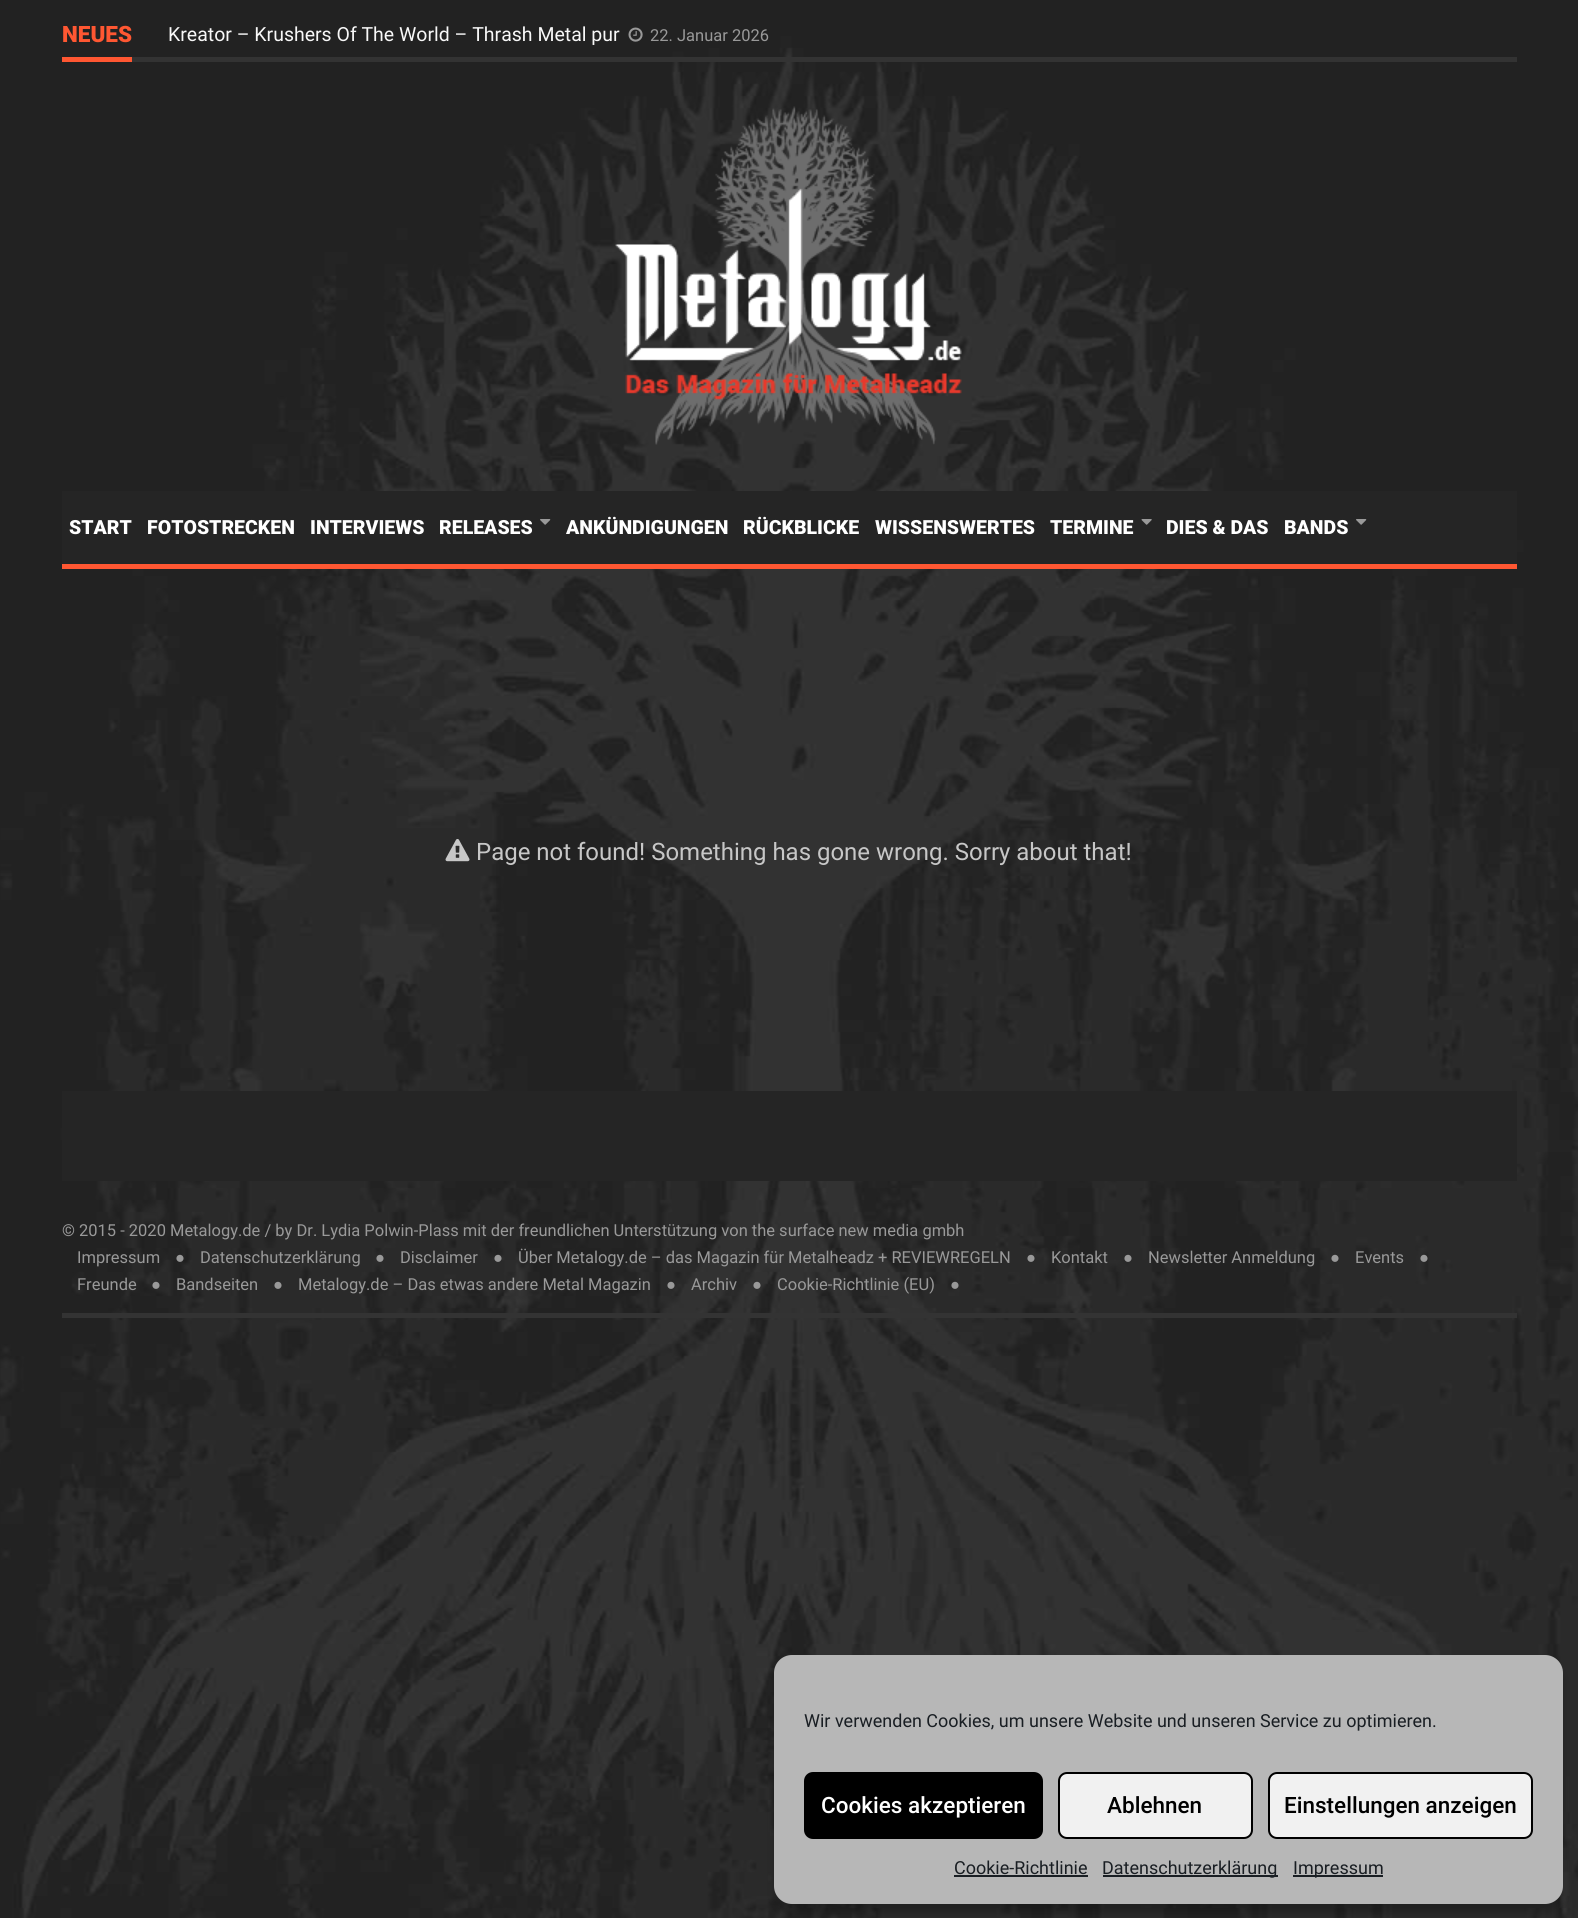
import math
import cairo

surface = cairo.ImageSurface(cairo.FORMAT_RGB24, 1578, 1918)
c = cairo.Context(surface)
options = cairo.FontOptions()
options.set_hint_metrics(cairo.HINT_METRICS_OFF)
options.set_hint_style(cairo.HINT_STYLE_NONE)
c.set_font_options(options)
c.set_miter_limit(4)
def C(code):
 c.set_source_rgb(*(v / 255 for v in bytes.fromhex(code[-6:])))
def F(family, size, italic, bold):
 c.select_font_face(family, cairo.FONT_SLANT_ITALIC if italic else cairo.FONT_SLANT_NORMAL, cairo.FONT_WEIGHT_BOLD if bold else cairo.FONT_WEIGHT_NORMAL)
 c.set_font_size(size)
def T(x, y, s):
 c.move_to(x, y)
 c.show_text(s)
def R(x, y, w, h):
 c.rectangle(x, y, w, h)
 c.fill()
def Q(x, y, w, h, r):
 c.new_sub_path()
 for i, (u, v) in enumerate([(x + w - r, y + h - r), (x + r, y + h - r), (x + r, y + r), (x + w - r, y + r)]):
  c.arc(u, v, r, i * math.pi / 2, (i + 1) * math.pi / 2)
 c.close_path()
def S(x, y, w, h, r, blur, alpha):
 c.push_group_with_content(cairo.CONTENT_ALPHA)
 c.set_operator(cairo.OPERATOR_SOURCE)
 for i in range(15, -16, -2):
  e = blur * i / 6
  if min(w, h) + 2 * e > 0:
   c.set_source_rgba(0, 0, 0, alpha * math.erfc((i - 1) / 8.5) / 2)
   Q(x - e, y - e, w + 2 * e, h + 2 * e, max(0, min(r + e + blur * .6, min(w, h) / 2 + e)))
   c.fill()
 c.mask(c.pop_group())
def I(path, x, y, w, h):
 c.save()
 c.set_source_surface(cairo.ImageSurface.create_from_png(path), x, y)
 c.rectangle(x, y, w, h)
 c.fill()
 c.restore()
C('ffffff')
c.paint()
I('1.png',0,0,1578,1918)
C('333333')
R(132,57,1385,5)
C('ff5732')
R(62,57,70,5)
F('Roboto Black',22.5,0,0)
T(62,42,'NEUES')
F('Roboto',19.5,0,0)
C('f8f8f8')
T(168,41,'Kreator – Krushers Of The World – Thrash Metal pur')
I('2.png',628,27,15,15)
F('Roboto',16.5,0,0)
C('999999')
T(650,41,'22. Januar 2026')
I('3.png',615,106,347,339)
C('ff5732')
c.new_path()
c.move_to(62,564)
c.line_to(62,569)
c.line_to(1517,569)
c.line_to(1517,495)
c.line_to(1516,495)
c.line_to(1516,564)
c.close_path()
c.fill()
C('252525')
R(62,491,1455,73)
F('Roboto Black',19.5,0,0)
C('ffffff')
T(69,534,'START')
T(147,534,'FOTOSTRECKEN')
T(310,534,'INTERVIEWS')
T(439,534,'RELEASES')
I('4.png',540,519,11,6)
T(566,534,'ANKÜNDIGUNGEN')
T(743,534,'RÜCKBLICKE')
T(875,534,'WISSENSWERTES')
T(1050,534,'TERMINE')
I('5.png',1141,519,11,6)
T(1166,534,'DIES & DAS')
T(1284,534,'BANDS')
I('4.png',1356,519,11,6)
I('6.png',445,839,25,23)
F('Roboto',24,0,0)
C('c7c7c7')
T(476,860,'Page not found! Something has gone wrong. Sorry about that!')
C('252525')
R(62,1091,1455,90)
C('333333')
R(62,1313,1455,5)
F('Roboto',16.5,0,0)
C('999999')
T(62,1236,'© 2015 - 2020 Metalogy.de / by Dr. Lydia Polwin-Plass mit der freundlichen Unterstützung von the surface new media gmbh')
T(77,1263,'Impressum')
F('Liberation Sans',16.5,0,0)
T(175,1263,'●')
F('Roboto',16.5,0,0)
T(200,1263,'Datenschutzerklärung')
F('Liberation Sans',16.5,0,0)
T(375,1263,'●')
F('Roboto',16.5,0,0)
T(400,1263,'Disclaimer')
F('Liberation Sans',16.5,0,0)
T(493,1263,'●')
F('Roboto',16.5,0,0)
T(518,1263,'Über Metalogy.de – das Magazin für Metalheadz + REVIEWREGELN')
F('Liberation Sans',16.5,0,0)
T(1026,1263,'●')
F('Roboto',16.5,0,0)
T(1051,1263,'Kontakt')
F('Liberation Sans',16.5,0,0)
T(1123,1263,'●')
F('Roboto',16.5,0,0)
T(1148,1263,'Newsletter Anmeldung')
F('Liberation Sans',16.5,0,0)
T(1330,1263,'●')
F('Roboto',16.5,0,0)
T(1355,1263,'Events')
F('Liberation Sans',16.5,0,0)
T(1419,1263,'●')
F('Roboto',16.5,0,0)
T(77,1290,'Freunde')
F('Liberation Sans',16.5,0,0)
T(151,1290,'●')
F('Roboto',16.5,0,0)
T(176,1290,'Bandseiten')
F('Liberation Sans',16.5,0,0)
T(273,1290,'●')
F('Roboto',16.5,0,0)
T(298,1290,'Metalogy.de – Das etwas andere Metal Magazin')
F('Liberation Sans',16.5,0,0)
T(666,1290,'●')
F('Roboto',16.5,0,0)
T(691,1290,'Archiv')
F('Liberation Sans',16.5,0,0)
T(752,1290,'●')
F('Roboto',16.5,0,0)
T(777,1290,'Cookie-Richtlinie (EU)')
F('Liberation Sans',16.5,0,0)
T(950,1290,'●')
C('000000')
S(774,1664,789,249,18,4.5,.23)
C('b7b7b7')
Q(774,1655,789,249,18)
c.fill()
F('Roboto',18,0,0)
C('191e23')
T(804,1727,'Wir verwenden Cookies, um unsere Website und unseren Service zu optimieren.')
C('000000')
Q(805,1773,237,65,8)
c.fill_preserve()
c.stroke()
F('Roboto Medium',22.5,0,0)
C('ffffff')
T(821,1813,'Cookies akzeptieren')
C('f1f1f1')
Q(1059,1773,193,65,8)
c.fill_preserve()
C('000000')
c.stroke()
T(1107,1813,'Ablehnen')
C('f1f1f1')
Q(1269,1773,263,65,8)
c.fill_preserve()
C('000000')
c.stroke()
T(1284,1813,'Einstellungen anzeigen')
F('Roboto',18,0,0)
C('191e23')
T(954,1874,'Cookie-Richtlinie')
R(954,1875,134,2)
R(1103,1875,175,2)
T(1102,1874,'Datenschutzerklärung')
R(1293,1875,90,2)
T(1293,1874,'Impressum')
surface.write_to_png('o.png')
